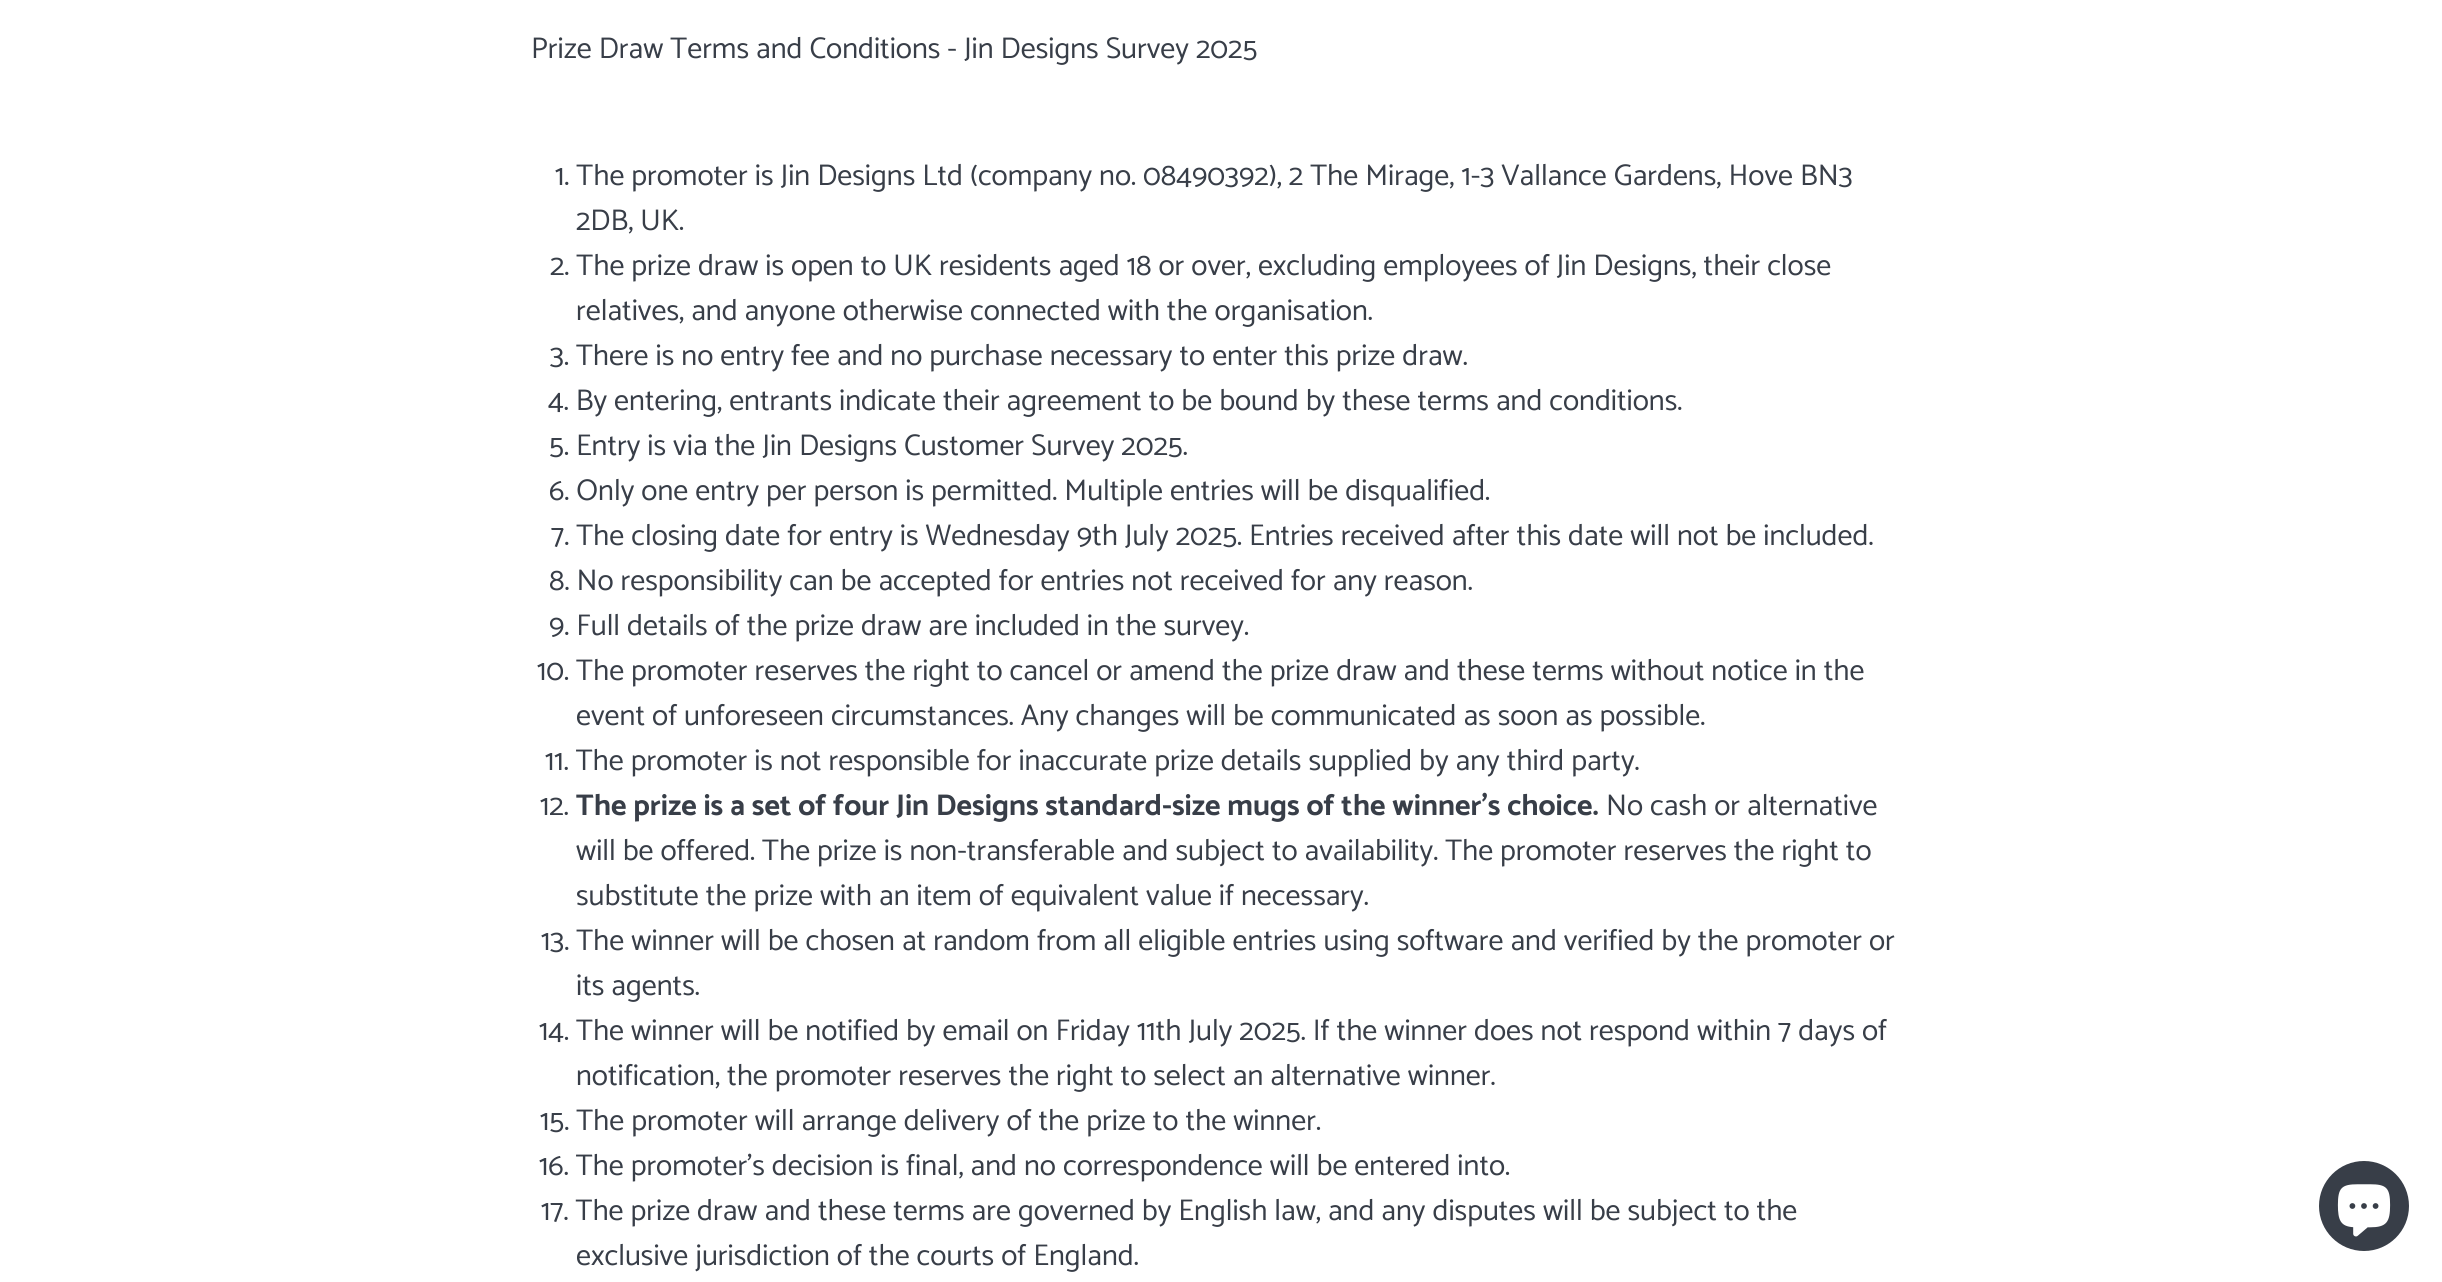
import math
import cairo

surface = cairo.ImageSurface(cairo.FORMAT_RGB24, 2442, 1282)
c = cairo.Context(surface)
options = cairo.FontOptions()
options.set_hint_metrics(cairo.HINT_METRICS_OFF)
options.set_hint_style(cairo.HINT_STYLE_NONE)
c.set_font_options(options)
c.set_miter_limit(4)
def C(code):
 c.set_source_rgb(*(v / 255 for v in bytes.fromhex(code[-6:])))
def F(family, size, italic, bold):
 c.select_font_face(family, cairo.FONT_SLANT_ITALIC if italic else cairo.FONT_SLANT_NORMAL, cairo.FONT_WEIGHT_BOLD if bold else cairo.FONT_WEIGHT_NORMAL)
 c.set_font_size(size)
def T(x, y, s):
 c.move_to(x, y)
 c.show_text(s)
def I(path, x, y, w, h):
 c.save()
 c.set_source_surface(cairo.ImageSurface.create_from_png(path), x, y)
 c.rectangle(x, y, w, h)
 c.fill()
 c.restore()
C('ffffff')
c.paint()
F('Catamaran',30,0,0)
C('383e48')
T(531,58,'Prize Draw Terms and Conditions - Jin Designs Survey 2025')
T(555,185,'1. The promoter is Jin Designs Ltd (company no. 08490392), 2 The Mirage, 1-3 Vallance Gardens, Hove BN3')
T(576,230,'2DB, UK.')
T(550,275,'2. The prize draw is open to UK residents aged 18 or over, excluding employees of Jin Designs, their close')
T(576,320,'relatives, and anyone otherwise connected with the organisation.')
T(550,365,'3. There is no entry fee and no purchase necessary to enter this prize draw.')
T(548,410,'4. By entering, entrants indicate their agreement to be bound by these terms and conditions.')
T(549,455,'5. Entry is via the Jin Designs Customer Survey 2025.')
T(549,500,'6. Only one entry per person is permitted. Multiple entries will be disqualified.')
T(551,545,'7. The closing date for entry is Wednesday 9th July 2025. Entries received after this date will not be included.')
T(549,590,'8. No responsibility can be accepted for entries not received for any reason.')
T(549,635,'9. Full details of the prize draw are included in the survey.')
T(537,680,'10. The promoter reserves the right to cancel or amend the prize draw and these terms without notice in the')
T(576,725,'event of unforeseen circumstances. Any changes will be communicated as soon as possible.')
T(545,770,'11. The promoter is not responsible for inaccurate prize details supplied by any third party.')
T(540,815,'12.')
F('Catamaran',30,0,1)
T(576,815,'The prize is a set of four Jin Designs standard-size mugs of the winner’s choice.')
F('Catamaran',30,0,0)
T(1606,815,'No cash or alternative')
T(576,860,'will be offered. The prize is non-transferable and subject to availability. The promoter reserves the right to')
T(576,905,'substitute the prize with an item of equivalent value if necessary.')
T(541,950,'13. The winner will be chosen at random from all eligible entries using software and verified by the promoter or')
T(576,995,'its agents.')
T(539,1040,'14. The winner will be notified by email on Friday 11th July 2025. If the winner does not respond within 7 days of')
T(576,1085,'notification, the promoter reserves the right to select an alternative winner.')
T(540,1130,'15. The promoter will arrange delivery of the prize to the winner.')
T(539,1175,'16. The promoter’s decision is final, and no correspondence will be entered into.')
T(541,1220,'17. The prize draw and these terms are governed by English law, and any disputes will be subject to the')
T(576,1265,'exclusive jurisdiction of the courts of England.')
c.new_path()
c.arc(2364,1206,45,0,2 * math.pi)
c.fill()
I('1.png',2337,1184,54,53)
surface.write_to_png('o.png')
